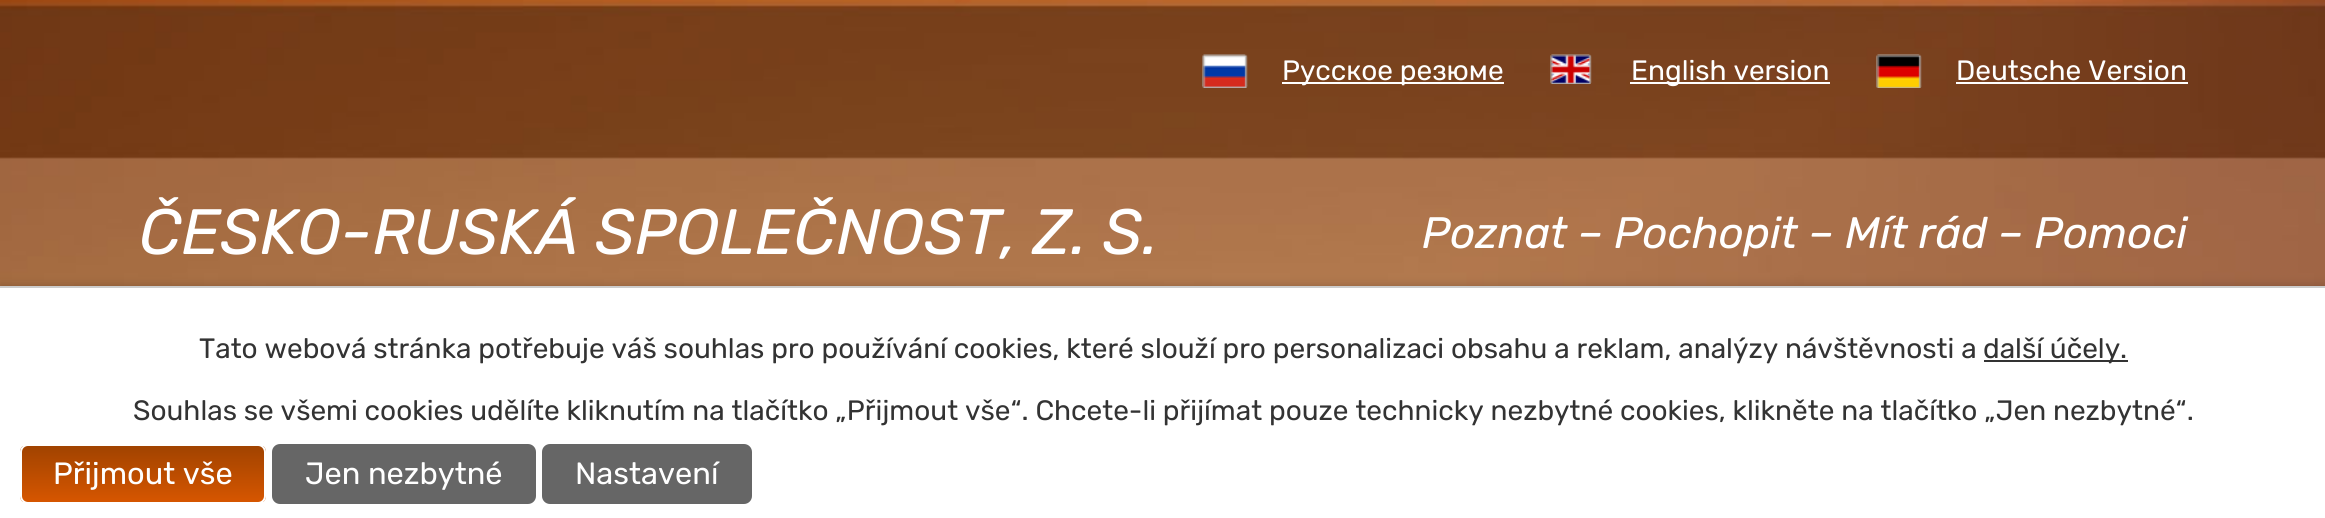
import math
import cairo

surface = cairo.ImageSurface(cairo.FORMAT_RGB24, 2325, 518)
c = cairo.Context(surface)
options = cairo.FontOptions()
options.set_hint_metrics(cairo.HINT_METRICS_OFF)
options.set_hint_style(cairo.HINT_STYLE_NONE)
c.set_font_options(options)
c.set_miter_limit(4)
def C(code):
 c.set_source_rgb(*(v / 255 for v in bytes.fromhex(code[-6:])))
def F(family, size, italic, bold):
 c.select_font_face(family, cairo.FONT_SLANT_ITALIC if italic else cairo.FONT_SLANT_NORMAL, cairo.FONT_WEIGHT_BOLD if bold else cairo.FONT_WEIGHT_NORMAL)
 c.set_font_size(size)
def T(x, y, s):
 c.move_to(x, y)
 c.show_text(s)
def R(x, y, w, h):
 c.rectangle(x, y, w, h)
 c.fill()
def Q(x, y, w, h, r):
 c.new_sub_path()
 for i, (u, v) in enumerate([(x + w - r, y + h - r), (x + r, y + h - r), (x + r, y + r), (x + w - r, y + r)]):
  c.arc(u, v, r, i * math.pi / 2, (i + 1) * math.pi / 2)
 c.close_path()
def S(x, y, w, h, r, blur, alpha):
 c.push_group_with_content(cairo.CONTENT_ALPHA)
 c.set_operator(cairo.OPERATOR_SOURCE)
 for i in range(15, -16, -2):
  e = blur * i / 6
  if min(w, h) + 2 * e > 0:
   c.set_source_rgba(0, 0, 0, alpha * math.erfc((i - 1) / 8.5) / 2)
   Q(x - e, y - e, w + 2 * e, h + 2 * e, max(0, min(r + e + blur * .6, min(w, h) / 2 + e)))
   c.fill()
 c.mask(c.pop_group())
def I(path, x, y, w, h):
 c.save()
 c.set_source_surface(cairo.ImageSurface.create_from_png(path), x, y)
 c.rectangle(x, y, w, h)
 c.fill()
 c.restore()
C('ffffff')
c.paint()
I('1.png',0,0,2325,286)
I('2.png',1202,54,46,34)
C('ffffff')
R(1282,82,222,2)
F('Rubik',28,0,0)
T(1282,80,'Русское резюме')
I('3.png',1550,54,42,30)
R(1630,82,200,2)
T(1631,80,'English version')
I('4.png',1876,54,46,34)
T(1956,80,'Deutsche Version')
R(1956,82,232,2)
F('Rubik Light',64,1,0)
T(139,254,'ČESKO-RUSKÁ SPOLEČNOST, Z. S.')
F('Rubik Light',44,1,0)
T(1422,248,'Poznat – Pochopit – Mít rád – Pomoci')
C('000000')
S(0,286,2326,232,0,5,.2)
C('ffffff')
R(0,288,2325,230)
C('cccccc')
R(0,286,2325,2)
F('Rubik',28,0,0)
C('333333')
T(199,358,'Tato webová stránka potřebuje váš souhlas pro používání cookies, které slouží pro personalizaci obsahu a reklam, analýzy návštěvnosti a')
R(1984,360,144,2)
T(1983,358,'další účely.')
T(133,420,'Souhlas se všemi cookies udělíte kliknutím na tlačítko „Přijmout vše“. Chcete-li přijímat pouze technicky nezbytné cookies, klikněte na tlačítko „Jen nezbytné“.')
c.save()
Q(20,444,246,60,8)
c.clip()
gradient = cairo.LinearGradient(22,446,22,502)
gradient.add_color_stop_rgba(0,0.631,0.263,0,1)
gradient.add_color_stop_rgba(1,0.839,0.337,0,1)
c.set_source(gradient)
R(20,446,246,56)
c.restore()
Q(21,445,244,58,7)
C('ffffff')
c.stroke()
F('Rubik',30.75,0,0)
T(53,484,'Přijmout vše')
C('666666')
Q(273,445,262,58,7)
c.fill_preserve()
c.stroke()
C('ffffff')
T(305,484,'Jen nezbytné')
C('666666')
Q(543,445,208,58,7)
c.fill_preserve()
c.stroke()
C('ffffff')
T(575,484,'Nastavení')
surface.write_to_png('o.png')
